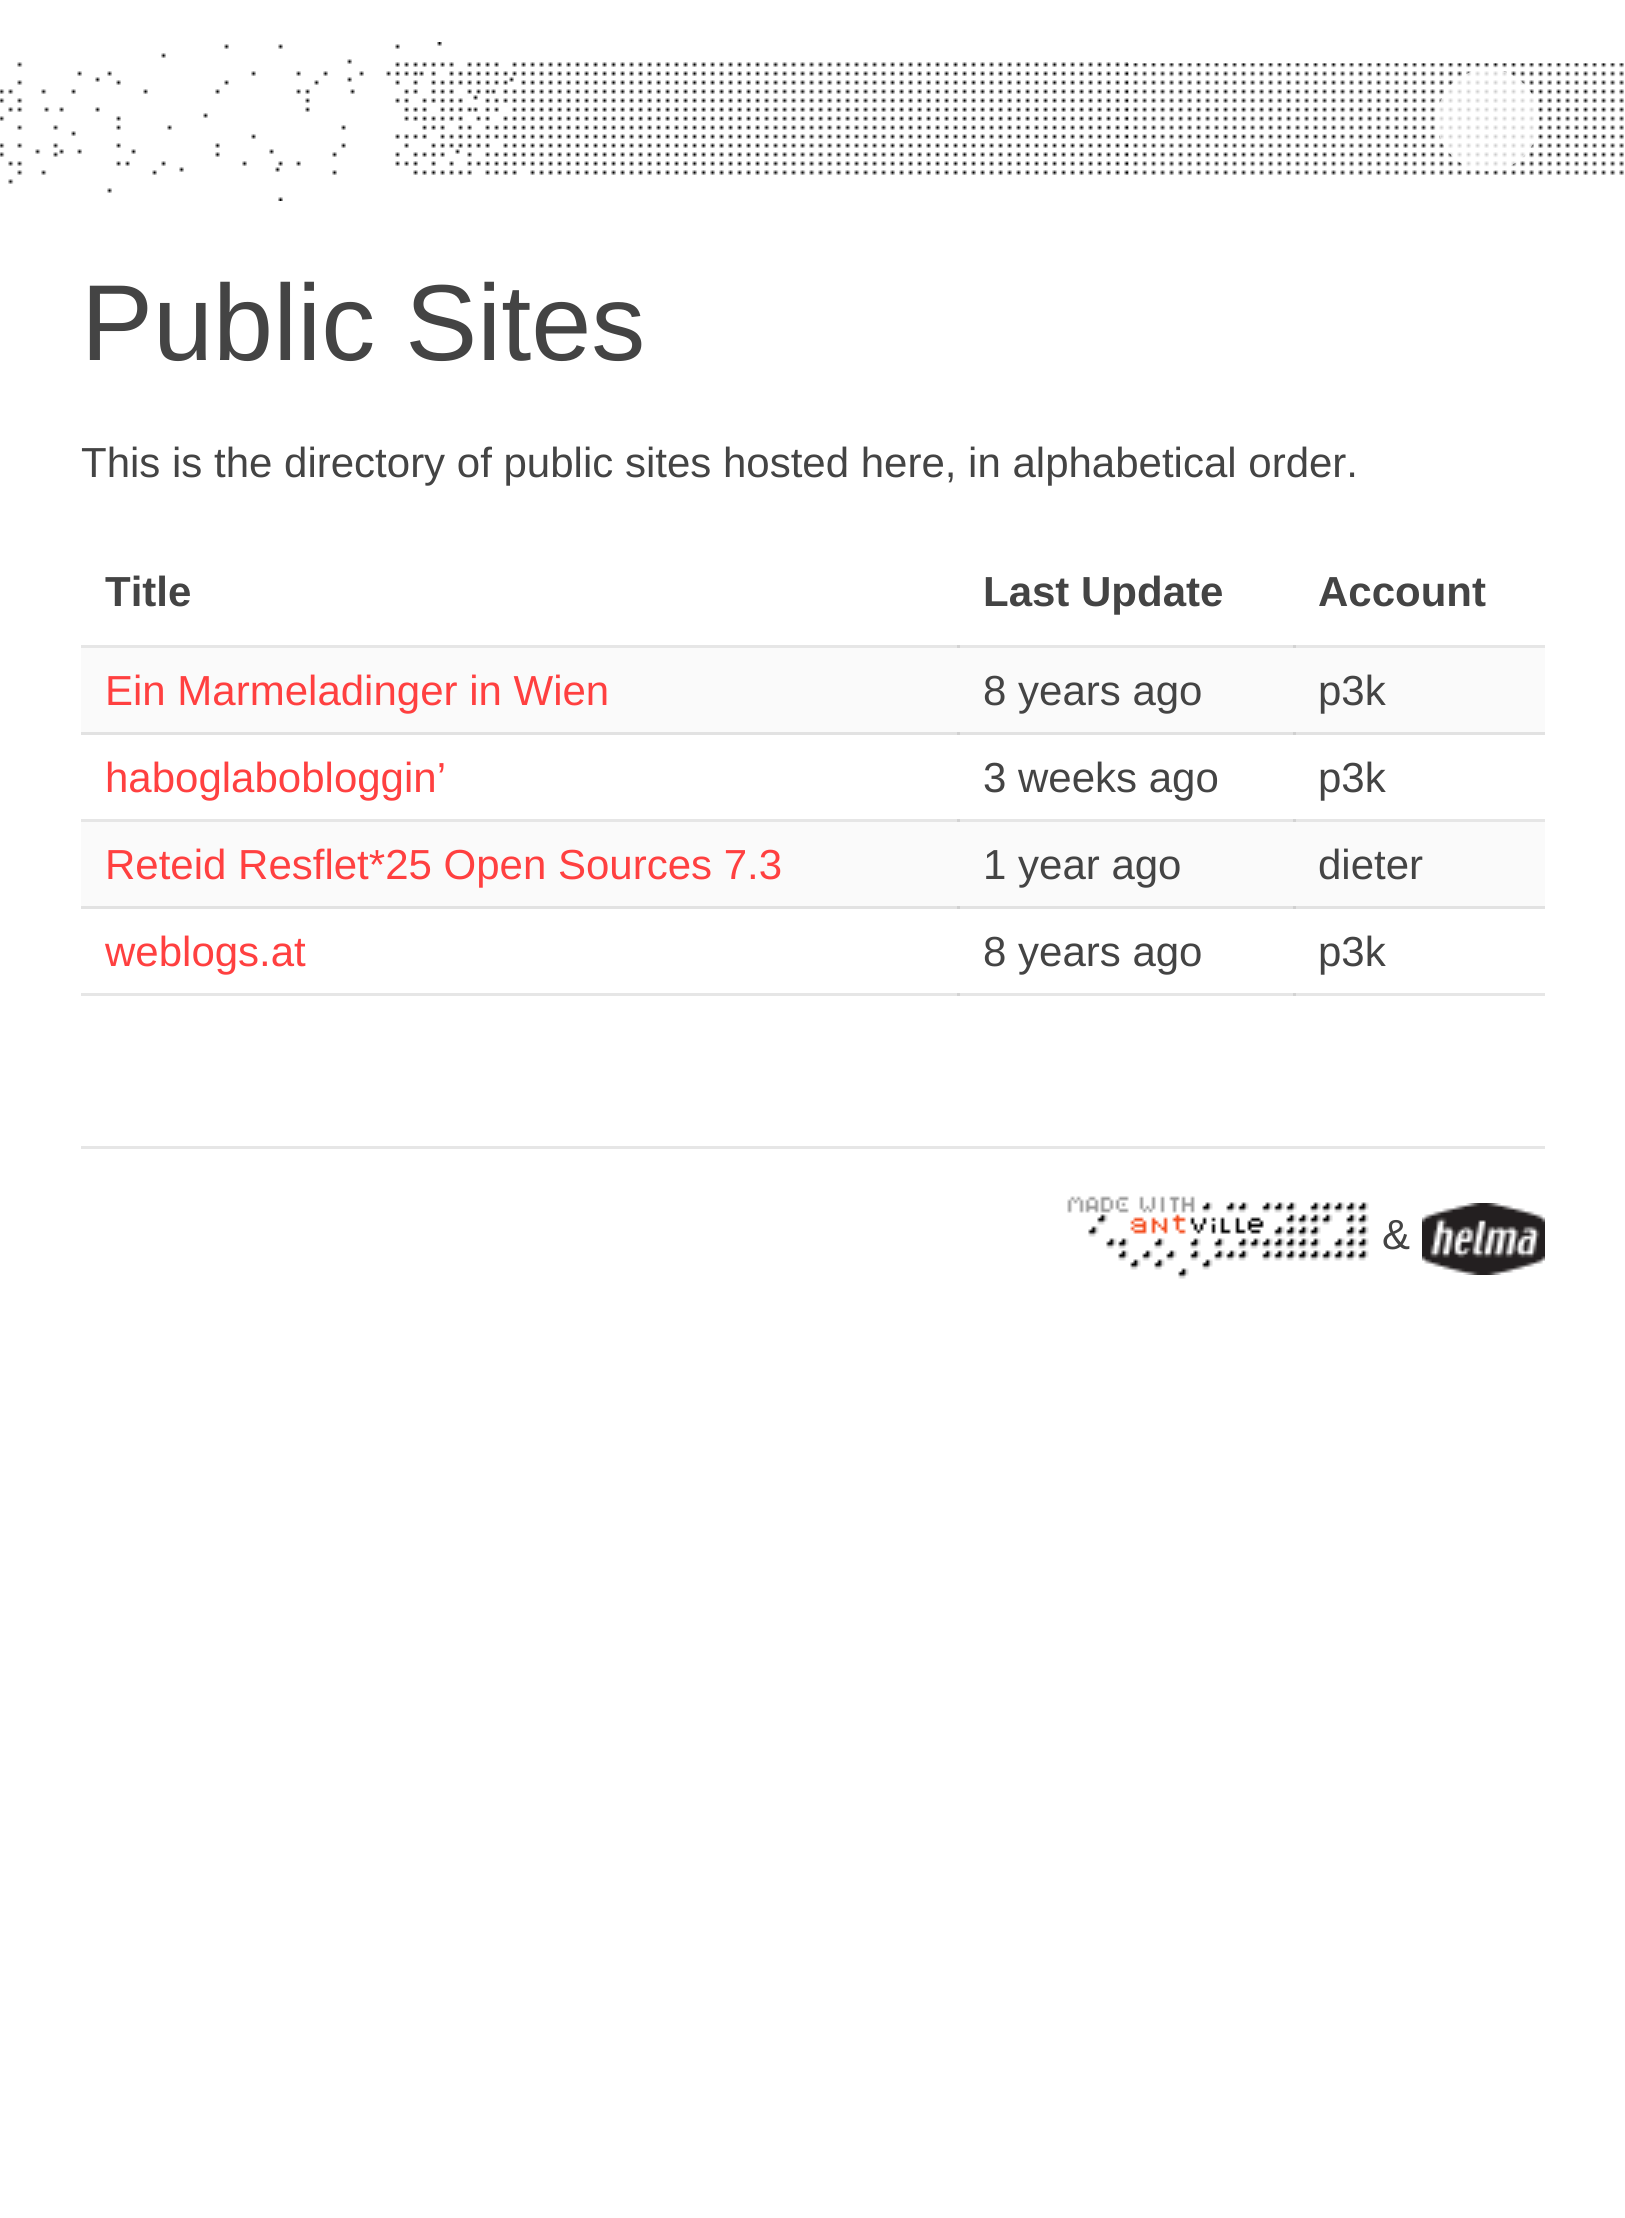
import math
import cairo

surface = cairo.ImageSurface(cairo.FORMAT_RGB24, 1625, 2218)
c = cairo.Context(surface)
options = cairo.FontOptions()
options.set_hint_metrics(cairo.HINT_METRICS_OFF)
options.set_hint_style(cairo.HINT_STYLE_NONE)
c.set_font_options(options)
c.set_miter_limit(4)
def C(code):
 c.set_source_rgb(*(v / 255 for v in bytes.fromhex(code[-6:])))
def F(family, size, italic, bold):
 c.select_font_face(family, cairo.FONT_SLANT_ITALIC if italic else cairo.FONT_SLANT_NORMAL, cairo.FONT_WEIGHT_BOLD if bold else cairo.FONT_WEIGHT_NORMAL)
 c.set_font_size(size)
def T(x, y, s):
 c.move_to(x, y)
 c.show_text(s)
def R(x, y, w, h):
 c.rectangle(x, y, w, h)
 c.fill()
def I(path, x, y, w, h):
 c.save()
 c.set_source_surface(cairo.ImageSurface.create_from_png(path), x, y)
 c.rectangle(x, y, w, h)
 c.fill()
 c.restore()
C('ffffff')
c.paint()
C('e6e6e6')
R(81,645,1464,3)
C('d3d3d3')
R(957,645,3,3)
C('e6e6e6')
R(81,819,1464,3)
C('d3d3d3')
R(957,819,3,3)
C('e6e6e6')
R(81,993,1464,3)
C('d3d3d3')
R(957,993,3,3)
I('1.png',0,53,184,140)
I('2.png',203,42,925,159)
I('3.png',1128,63,496,112)
c.set_source_rgba(1,1,1,0.8)
c.arc(1488,120,51,0,2 * math.pi)
c.fill()
F('Liberation Sans',108,0,0)
C('444444')
T(81,360,'Public Sites')
F('Liberation Sans',42,0,0)
T(81,477,'This is the directory of public sites hosted here, in alphabetical order.')
F('Liberation Sans',42,0,1)
T(105,606,'Title')
T(983,606,'Last Update')
C('d3d3d3')
R(1293,645,3,3)
C('444444')
T(1318,606,'Account')
C('fafafa')
R(81,648,1464,84)
C('e2e2e2')
R(81,732,1464,3)
C('d0d0d0')
R(957,732,3,3)
F('Liberation Sans',42,0,0)
C('ff4040')
T(105,705,'Ein Marmeladinger in Wien')
C('444444')
T(983,705,'8 years ago')
C('d0d0d0')
R(1293,732,3,3)
C('444444')
T(1318,705,'p3k')
C('ff4040')
T(105,792,'haboglabobloggin’')
C('444444')
T(983,792,'3 weeks ago')
C('d3d3d3')
R(1293,819,3,3)
C('444444')
T(1318,792,'p3k')
C('fafafa')
R(81,822,1464,84)
C('e2e2e2')
R(81,906,1464,3)
C('d0d0d0')
R(957,906,3,3)
C('ff4040')
T(105,879,'Reteid Resflet*25 Open Sources 7.3')
C('444444')
T(983,879,'1 year ago')
C('d0d0d0')
R(1293,906,3,3)
C('444444')
T(1318,879,'dieter')
C('ff4040')
T(105,966,'weblogs.at')
C('444444')
T(983,966,'8 years ago')
C('d3d3d3')
R(1293,993,3,3)
C('444444')
T(1318,966,'p3k')
C('e6e6e6')
R(81,1146,1464,3)
I('4.png',1067,1196,302,83)
C('444444')
T(1382,1249,'&')
I('5.png',1422,1203,123,72)
surface.write_to_png('o.png')
